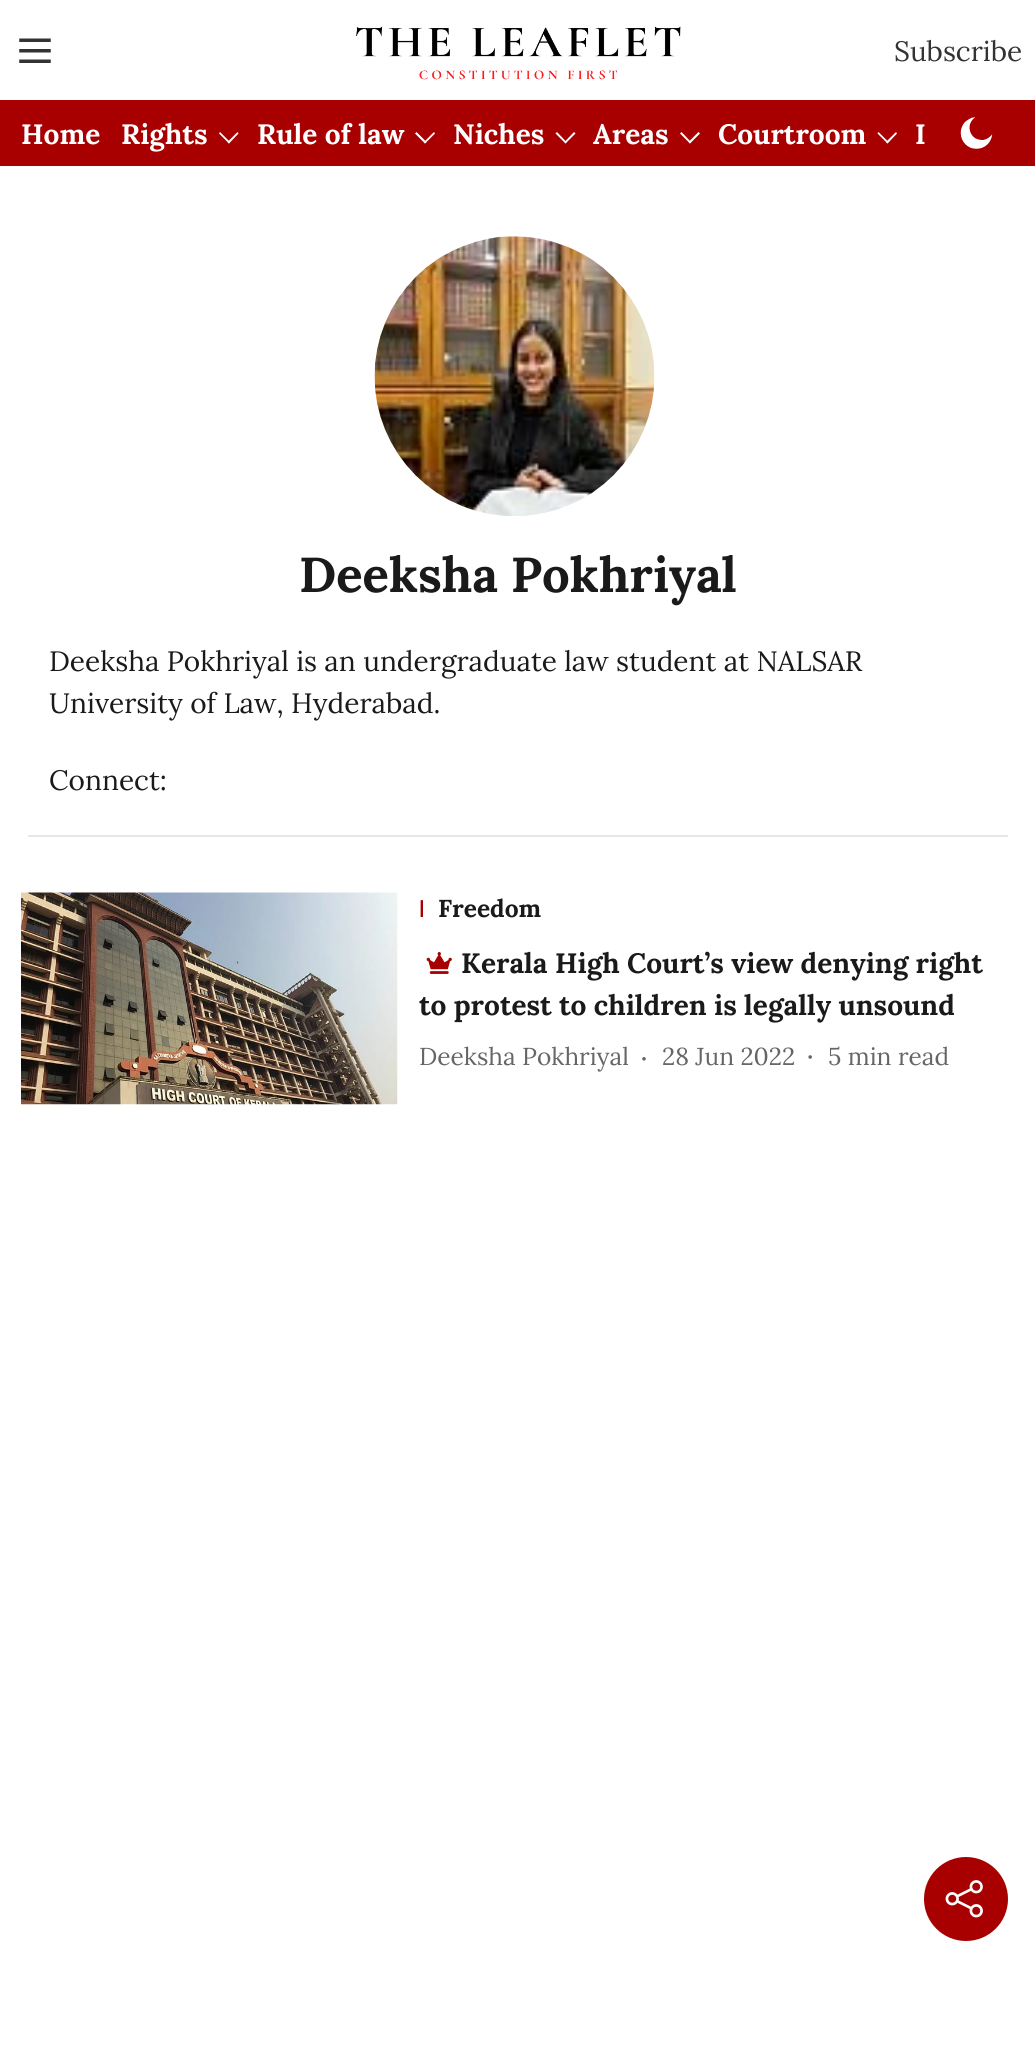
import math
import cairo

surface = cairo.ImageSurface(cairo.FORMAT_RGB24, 1035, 2054)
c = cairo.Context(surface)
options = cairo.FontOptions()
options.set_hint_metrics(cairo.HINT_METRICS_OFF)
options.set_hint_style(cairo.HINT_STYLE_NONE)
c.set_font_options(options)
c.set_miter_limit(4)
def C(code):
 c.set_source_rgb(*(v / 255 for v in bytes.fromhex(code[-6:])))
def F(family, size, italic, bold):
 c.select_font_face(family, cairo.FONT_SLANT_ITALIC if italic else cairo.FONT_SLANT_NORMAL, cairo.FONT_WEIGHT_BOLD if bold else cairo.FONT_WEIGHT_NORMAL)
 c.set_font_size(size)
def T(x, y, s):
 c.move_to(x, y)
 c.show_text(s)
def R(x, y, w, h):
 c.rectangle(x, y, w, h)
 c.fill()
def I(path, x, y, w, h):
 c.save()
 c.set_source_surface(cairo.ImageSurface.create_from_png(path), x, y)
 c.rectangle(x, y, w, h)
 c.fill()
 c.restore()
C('ffffff')
c.paint()
I('1.png',19,38,32,25)
I('2.png',356,26,325,54)
F('Lora',28,0,0)
C('333333')
T(894,61,'Subscribe')
C('a80000')
R(0,100,1035,66)
F('Lora',28,0,1)
C('ffffff')
T(21,144,'Home')
T(121,144,'Rights')
c.new_path()
c.move_to(237.5,132)
c.line_to(238.5,133.5)
c.line_to(229,143.5)
c.line_to(227.5,142)
c.close_path()
c.fill()
c.new_path()
c.move_to(220,132)
c.line_to(230,142)
c.line_to(229,143.5)
c.line_to(219,133.5)
c.close_path()
c.fill()
T(257,144,'Rule of law')
c.new_path()
c.move_to(434,132)
c.line_to(435,133.5)
c.line_to(425,143.5)
c.line_to(424,142)
c.close_path()
c.fill()
c.new_path()
c.move_to(416.5,132)
c.line_to(426.5,142)
c.line_to(425,143.5)
c.line_to(415,133.5)
c.close_path()
c.fill()
T(453,144,'Niches')
c.new_path()
c.move_to(574,132)
c.line_to(575.5,133.5)
c.line_to(565.5,143.5)
c.line_to(564.5,142)
c.close_path()
c.fill()
c.new_path()
c.move_to(557,132)
c.line_to(566.5,142)
c.line_to(565.5,143.5)
c.line_to(555.5,133.5)
c.close_path()
c.fill()
T(593,144,'Areas')
c.new_path()
c.move_to(698.5,132)
c.line_to(700,133.5)
c.line_to(690,143.5)
c.line_to(688.5,142)
c.close_path()
c.fill()
c.new_path()
c.move_to(681.5,132)
c.line_to(691,142)
c.line_to(690,143.5)
c.line_to(680,133.5)
c.close_path()
c.fill()
T(718,144,'Courtroom')
c.new_path()
c.move_to(896,132)
c.line_to(897,133.5)
c.line_to(887.5,143.5)
c.line_to(886,142)
c.close_path()
c.fill()
c.new_path()
c.move_to(878.5,132)
c.line_to(888.5,142)
c.line_to(887.5,143.5)
c.line_to(877.5,133.5)
c.close_path()
c.fill()
T(915,144,'I')
I('3.png',960,117,33,32)
C('e6e6e6')
R(28,835,980,2)
I('4.png',374,236,281,280)
F('Lora',49,0,1)
C('1a1a1a')
T(299,592,'Deeksha Pokhriyal')
F('Lora',28,0,0)
T(49,671,'Deeksha Pokhriyal is an undergraduate law student at NALSAR')
T(49,713,'University of Law, Hyderabad.')
T(49,790,'Connect:')
C('a80000')
c.new_path()
c.arc(966,1899,42,0,2 * math.pi)
c.fill()
I('5.png',945,1880,38,38)
I('6.png',21,892,377,213)
c.save()
c.rectangle(418,893,5,31)
c.clip()
F('Liberation Sans',24.5,0,1)
T(419,917,'I')
c.restore()
F('Lora',24.5,0,1)
C('1a1a1a')
T(438,917,'Freedom')
I('7.png',426,952,26,22)
F('Lora',28,0,1)
T(461,973,'Kerala High Court’s view denying right')
T(419,1015,'to protest to children is legally unsound')
F('Lora',24.5,0,0)
C('666666')
T(419,1065,'Deeksha Pokhriyal')
c.new_path()
c.arc(644,1058.8,1.8,0,2 * math.pi)
c.fill()
T(662,1065,'28 Jun 2022')
c.new_path()
c.arc(810.2,1057,1.8,0,2 * math.pi)
c.fill()
T(828,1065,'5 min read')
surface.write_to_png('o.png')
